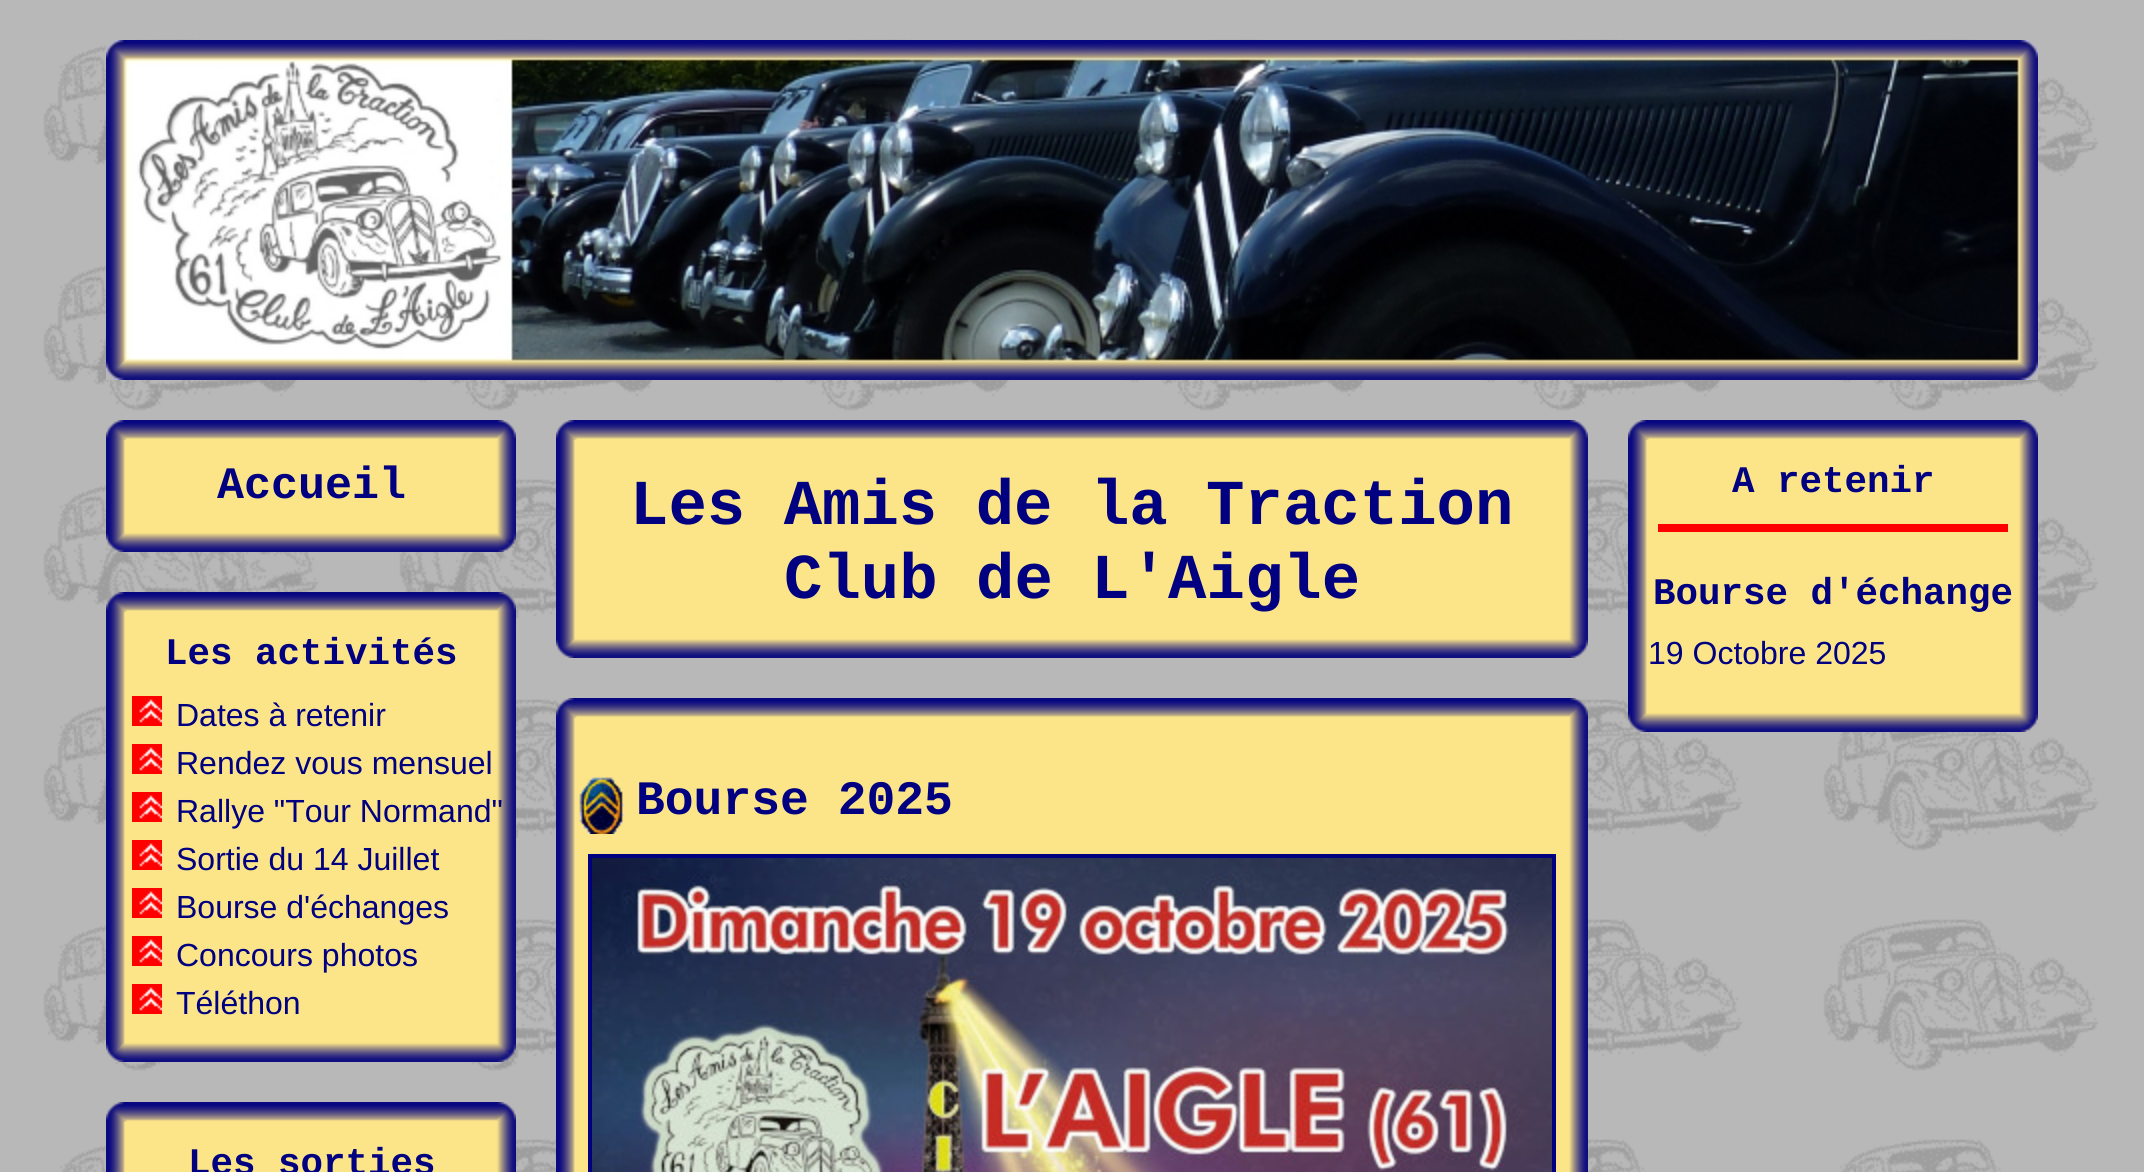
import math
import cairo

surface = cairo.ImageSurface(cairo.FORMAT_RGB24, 2144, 1172)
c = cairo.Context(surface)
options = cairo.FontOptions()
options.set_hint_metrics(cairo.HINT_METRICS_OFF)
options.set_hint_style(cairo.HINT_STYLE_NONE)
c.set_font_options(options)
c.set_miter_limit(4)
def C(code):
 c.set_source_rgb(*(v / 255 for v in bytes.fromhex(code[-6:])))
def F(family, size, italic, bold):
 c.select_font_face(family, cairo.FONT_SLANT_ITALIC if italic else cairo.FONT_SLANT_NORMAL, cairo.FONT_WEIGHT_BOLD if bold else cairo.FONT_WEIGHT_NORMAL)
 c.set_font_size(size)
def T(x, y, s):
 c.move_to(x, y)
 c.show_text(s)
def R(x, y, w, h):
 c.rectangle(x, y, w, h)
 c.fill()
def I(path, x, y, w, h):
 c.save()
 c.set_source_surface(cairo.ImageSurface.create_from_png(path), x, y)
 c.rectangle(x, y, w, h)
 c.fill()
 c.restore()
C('ffffff')
c.paint()
I('1.png',0,0,2144,1172)
I('2.png',106,40,1932,340)
I('3.png',106,420,410,20)
I('4.png',106,440,410,92)
F('Liberation Mono',45,0,1)
C('000080')
T(217,498,'Accueil')
I('5.png',106,532,410,20)
I('6.png',106,592,410,20)
I('7.png',106,612,410,430)
F('Liberation Mono',37.5,0,1)
T(165,664,'Les activités')
I('8.png',132,696,30,30)
F('Liberation Sans',32,0,0)
T(176,726,'Dates à retenir')
I('8.png',132,744,30,30)
T(176,774,'Rendez vous mensuel')
I('8.png',132,792,30,30)
T(176,822,'Rallye "Tour Normand"')
I('8.png',132,840,30,30)
T(176,870,'Sortie du 14 Juillet')
I('8.png',132,888,30,30)
T(176,918,'Bourse d\'échanges')
I('8.png',132,936,30,30)
T(176,966,'Concours photos')
I('8.png',132,984,30,30)
T(176,1014,'Téléthon')
I('9.png',106,1042,410,20)
I('3.png',106,1102,410,20)
I('10.png',106,1122,410,50)
F('Liberation Mono',37.5,0,1)
T(188,1174,'Les sorties')
I('11.png',556,420,1032,20)
I('12.png',556,440,1032,198)
F('Liberation Mono',64,0,1)
T(630,524,'Les Amis de la Traction')
T(784,598,'Club de L\'Aigle')
I('13.png',556,638,1032,20)
I('14.png',556,698,1032,20)
I('15.png',556,718,1032,454)
I('16.png',579,777,46,57)
F('Liberation Mono',48,0,1)
T(636,814,'Bourse 2025')
c.rectangle(590,856,964,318)
c.set_line_width(4)
c.stroke()
I('17.png',592,858,960,314)
I('3.png',1628,420,410,20)
I('18.png',1628,440,410,272)
F('Liberation Mono',37.5,0,1)
T(1732,492,'A retenir')
C('ff0000')
R(1658,524,350,8)
C('000080')
T(1653,604,'Bourse d\'échange')
F('Liberation Sans',32,0,0)
T(1648,664,'19 Octobre 2025')
I('19.png',1628,712,410,20)
surface.write_to_png('o.png')
